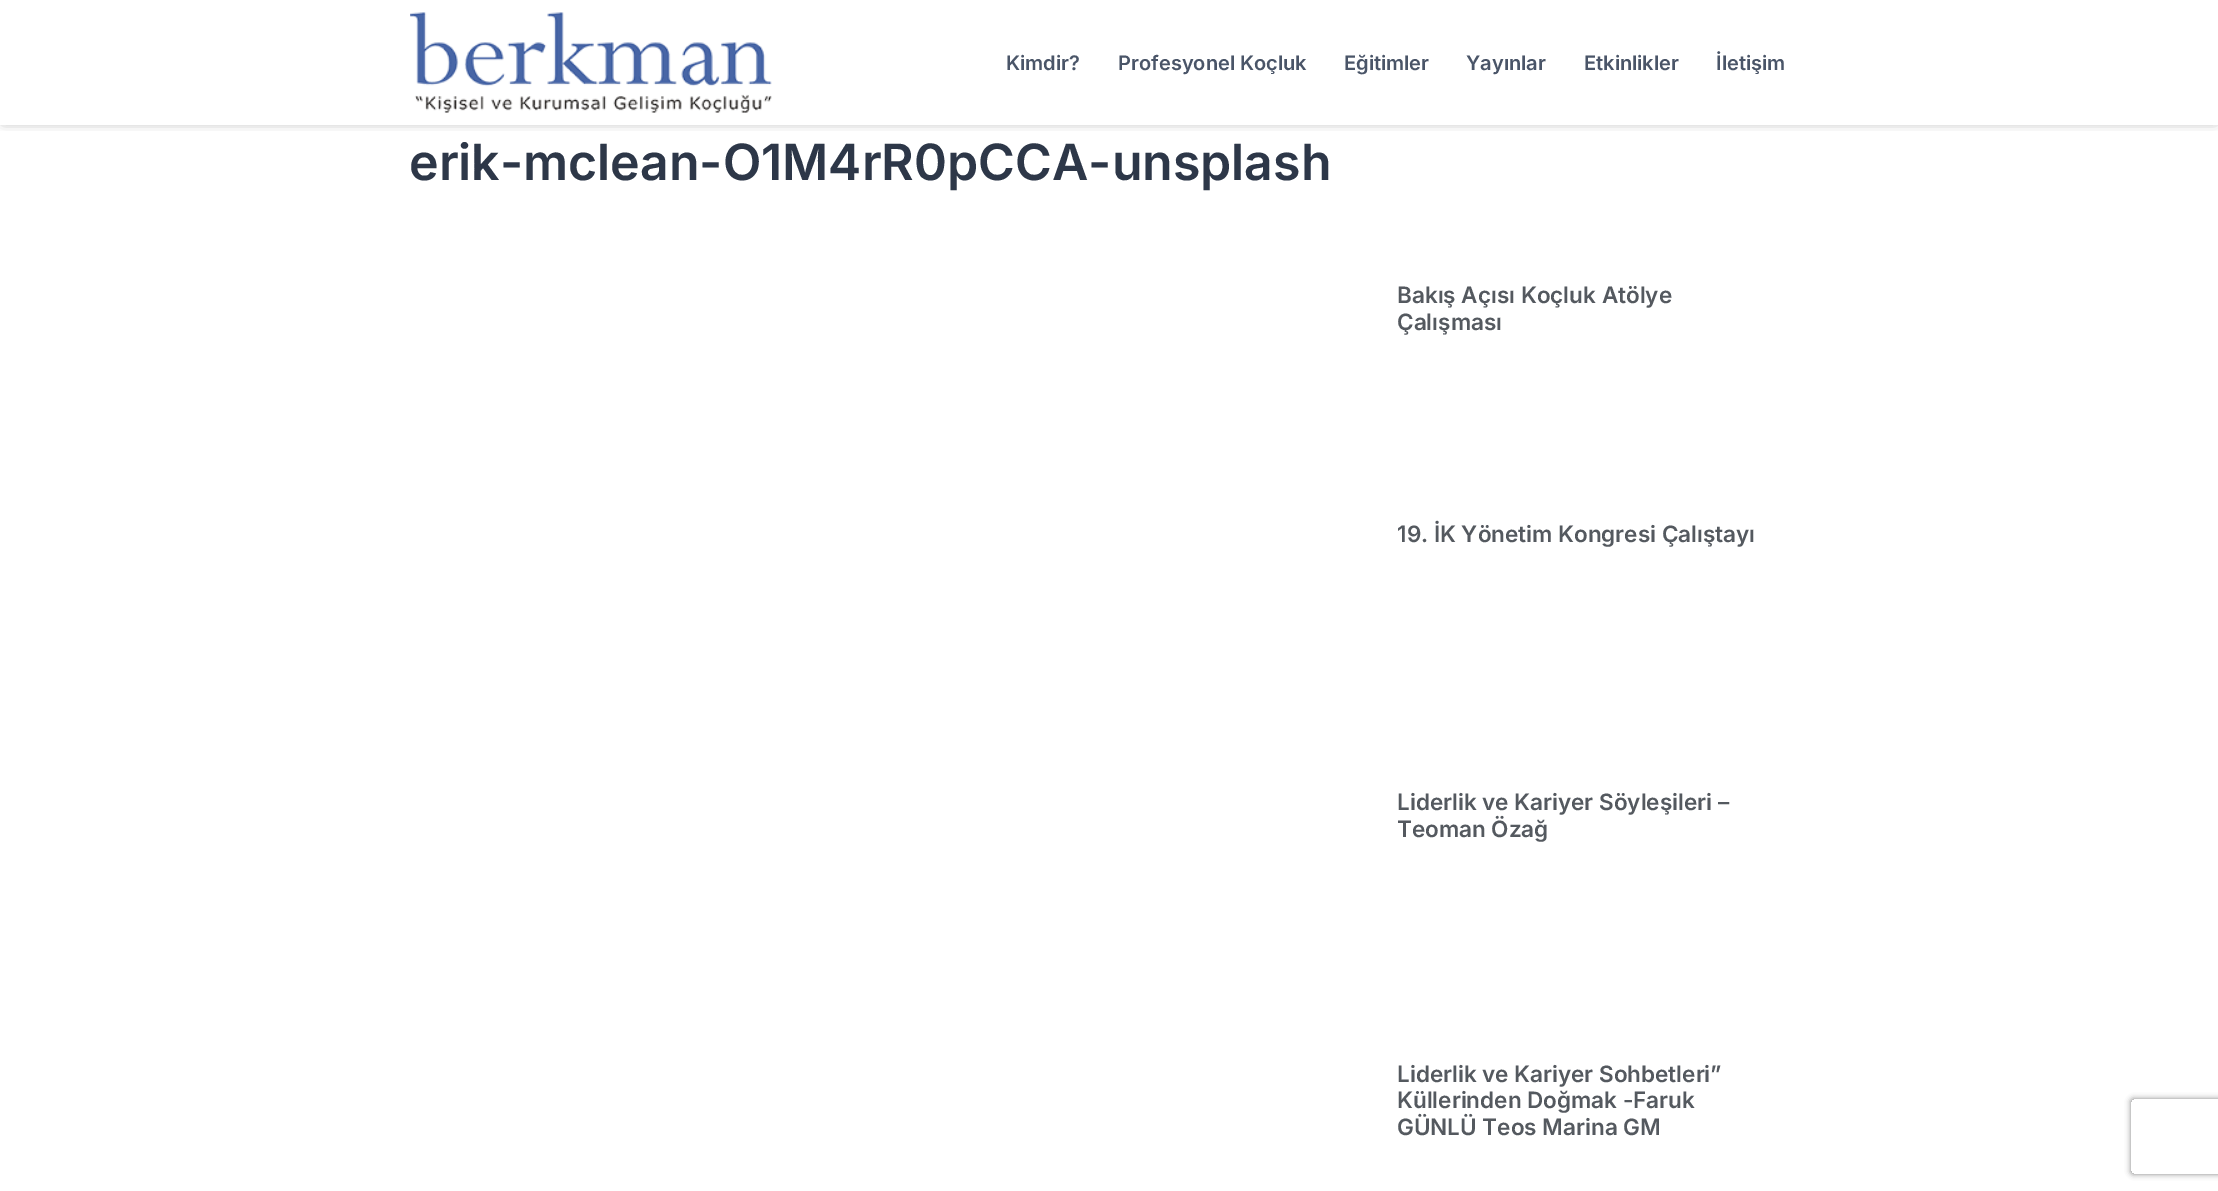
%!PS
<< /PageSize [2218 1191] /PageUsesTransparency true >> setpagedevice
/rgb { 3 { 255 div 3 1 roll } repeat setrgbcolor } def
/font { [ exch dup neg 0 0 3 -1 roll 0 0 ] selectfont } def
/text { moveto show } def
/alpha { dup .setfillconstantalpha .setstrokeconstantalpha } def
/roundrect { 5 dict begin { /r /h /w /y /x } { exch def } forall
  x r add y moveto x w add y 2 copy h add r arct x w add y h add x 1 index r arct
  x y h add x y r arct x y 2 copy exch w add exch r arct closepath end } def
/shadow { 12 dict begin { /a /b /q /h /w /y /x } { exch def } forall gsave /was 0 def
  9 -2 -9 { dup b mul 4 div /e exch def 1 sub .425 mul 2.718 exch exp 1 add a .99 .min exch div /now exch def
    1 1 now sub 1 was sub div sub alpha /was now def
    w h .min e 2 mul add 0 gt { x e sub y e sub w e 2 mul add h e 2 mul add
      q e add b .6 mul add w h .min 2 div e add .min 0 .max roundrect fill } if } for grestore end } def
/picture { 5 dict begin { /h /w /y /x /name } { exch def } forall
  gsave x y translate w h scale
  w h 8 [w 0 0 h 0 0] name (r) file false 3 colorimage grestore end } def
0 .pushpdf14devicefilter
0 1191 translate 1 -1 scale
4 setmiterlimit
255 255 255 rgb
0 0 2218 1191 rectfill
gsave
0 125 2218 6 rectclip
0 0 0 rgb
4 4 2211 117 0 5.5 0.5 shadow
grestore
(img_01.rgb) 410 12 362 101 picture
gsave
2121 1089 moveto 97 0 rlineto 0 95 rlineto -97 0 rlineto closepath 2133.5 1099 moveto 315 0 rlineto 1.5 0 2.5 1 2.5 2.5 rcurveto 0 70 rlineto 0 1.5 -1 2.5 -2.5 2.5 rcurveto -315 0 rlineto -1.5 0 -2.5 -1 -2.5 -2.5 rcurveto 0 -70 rlineto 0 -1.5 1 -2.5 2.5 -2.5 rcurveto closepath eoclip newpath
128 128 128 rgb
2131 1099 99 75 2.5 3 1 shadow
grestore
/Inter-SemiBold 20 font
74 85 104 rgb
(Kimdir?) 1006 70 text
(Profesyonel Koçluk) 1118 70 text
(Eğitimler) 1344 70 text
(Yayınlar) 1466 70 text
(Etkinlikler) 1584 70 text
(İletişim) 1716 70 text
/Inter-SemiBold 50 font
45 55 72 rgb
(erik-mclean-O1M4rR0pCCA-unsplash) 409 180 text
/Inter-SemiBold 22.5 font
84 89 95 rgb
(Bakış Açısı Koçluk Atölye) 1397 303 text
(Çalışması) 1397 330 text
(19. İK Yönetim Kongresi Çalıştayı) 1397 542 text
(Liderlik ve Kariyer Söyleşileri –) 1397 810 text
(Teoman Özağ) 1397 837 text
(Liderlik ve Kariyer Sohbetleri”) 1397 1082 text
(Küllerinden Doğmak -Faruk) 1397 1108 text
(GÜNLÜ Teos Marina GM) 1397 1135 text
.poppdf14devicefilter showpage
